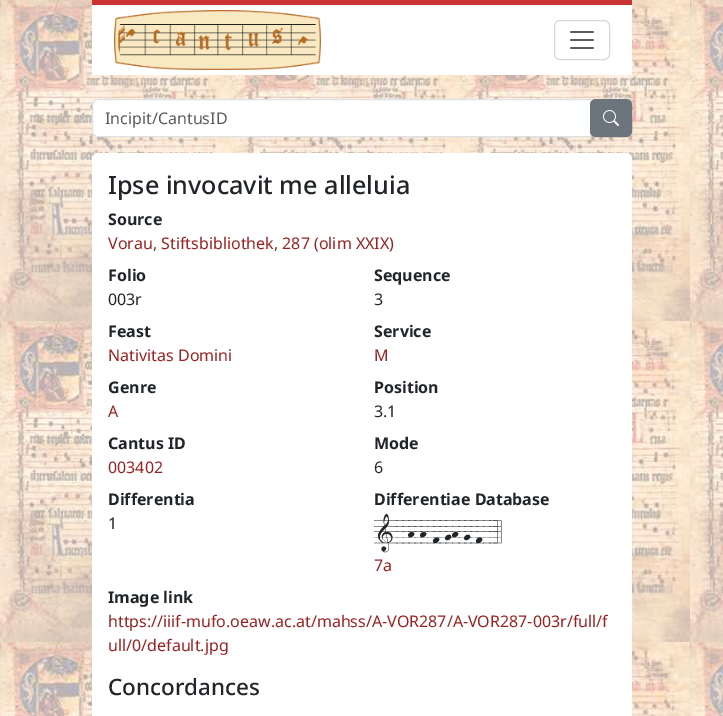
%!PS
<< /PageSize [723 716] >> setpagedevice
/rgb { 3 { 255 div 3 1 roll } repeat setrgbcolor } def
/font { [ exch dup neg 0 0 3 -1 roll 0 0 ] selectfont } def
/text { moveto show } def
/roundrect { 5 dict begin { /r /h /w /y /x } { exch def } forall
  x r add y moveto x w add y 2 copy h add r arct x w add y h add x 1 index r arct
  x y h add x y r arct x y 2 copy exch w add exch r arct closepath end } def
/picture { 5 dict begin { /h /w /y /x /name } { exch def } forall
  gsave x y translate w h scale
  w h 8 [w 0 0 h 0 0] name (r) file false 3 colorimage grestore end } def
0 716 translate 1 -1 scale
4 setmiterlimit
255 255 255 rgb
0 0 723 716 rectfill
(img_01.rgb) 0 0 723 716 picture
92 5 540 70 rectfill
204 51 51 rgb
92 0 540 5 rectfill
(img_02.rgb) 114 10 207 60 picture
217 217 217 rgb
554.5 20.5 55 39 5.5 roundrect stroke
(img_03.rgb) 570 31 24 18 picture
255 255 255 rgb
98 99.5 moveto 492.5 0 rlineto 0 37 rlineto -492.5 0 rlineto -3 0 -5.5 -2.5 -5.5 -5.5 rcurveto 0 -26 rlineto 0 -3 2.5 -5.5 5.5 -5.5 rcurveto closepath gsave fill grestore
222 226 230 rgb
stroke
108 117 125 rgb
590.5 99.5 41 37 5.5 roundrect gsave fill grestore
stroke
(img_04.rgb) 603 110 16 16 picture
255 255 255 rgb
92 153 540 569 6 roundrect fill
/NotoSans-Regular 16 font
89 92 95 rgb
(Incipit/CantusID) 105 124 text
/NotoSans-Medium 25.1 font
33 37 41 rgb
(Ipse invocavit me alleluia) 108 194 text
/NotoSans-Bold 16 font
(Source) 108 225 text
/NotoSans-Regular 16 font
153 34 34 rgb
(Vorau, Stiftsbibliothek, 287 \(olim XXIX\)) 108 249 text
/NotoSans-Bold 16 font
33 37 41 rgb
(Folio) 108 281 text
/NotoSans-Regular 16 font
(003r) 108 305 text
/NotoSans-Bold 16 font
(Sequence) 374 281 text
/NotoSans-Regular 16 font
(3) 374 305 text
/NotoSans-Bold 16 font
(Feast) 108 337 text
/NotoSans-Regular 16 font
153 34 34 rgb
(Nativitas Domini) 108 361 text
/NotoSans-Bold 16 font
33 37 41 rgb
(Service) 374 337 text
/NotoSans-Regular 16 font
153 34 34 rgb
(M) 374 361 text
/NotoSans-Bold 16 font
33 37 41 rgb
(Genre) 108 393 text
/NotoSans-Regular 16 font
153 34 34 rgb
(A) 108 417 text
/NotoSans-Bold 16 font
33 37 41 rgb
(Position) 374 393 text
/NotoSans-Regular 16 font
(3.1) 374 417 text
/NotoSans-Bold 16 font
(Cantus ID) 108 449 text
/NotoSans-Regular 16 font
153 34 34 rgb
(003402) 108 473 text
/NotoSans-Bold 16 font
33 37 41 rgb
(Mode) 374 449 text
/NotoSans-Regular 16 font
(6) 374 473 text
/NotoSans-Bold 16 font
(Differentia) 108 505 text
/NotoSans-Regular 16 font
(1) 108 529 text
/NotoSans-Bold 16 font
(Differentiae Database) 374 505 text
/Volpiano-Regular 28 font
(1--h-h-f-gh-g-f--4) 374 543 text
/NotoSans-Regular 16 font
153 34 34 rgb
(7a) 374 571 text
/NotoSans-Bold 16 font
33 37 41 rgb
(Image link) 108 603 text
/NotoSans-Regular 16 font
153 34 34 rgb
(https://iiif-mufo.oeaw.ac.at/mahss/A-VOR287/A-VOR287-003r/full/f) 108 627 text
(ull/0/default.jpg) 108 651 text
/NotoSans-Medium 22.5 font
33 37 41 rgb
(Concordances) 108 695 text
showpage
